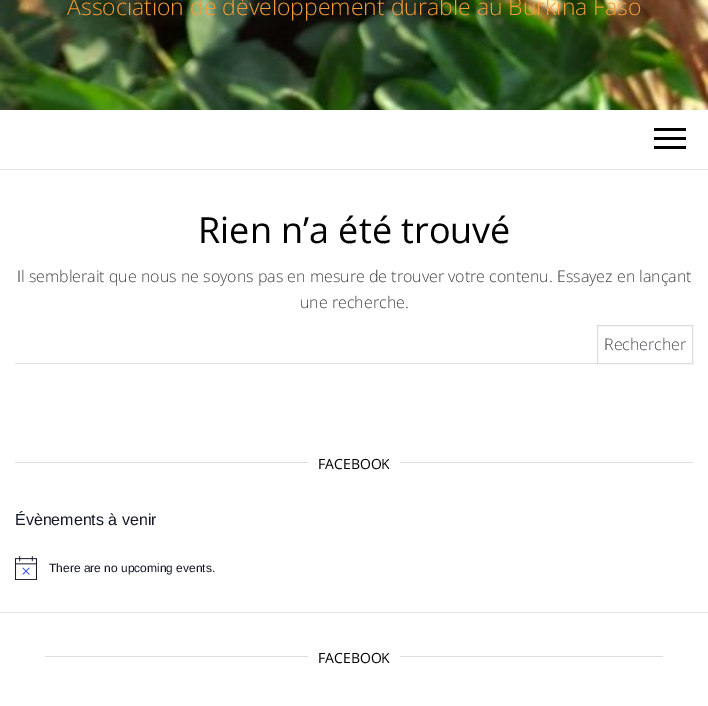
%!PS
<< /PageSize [708 706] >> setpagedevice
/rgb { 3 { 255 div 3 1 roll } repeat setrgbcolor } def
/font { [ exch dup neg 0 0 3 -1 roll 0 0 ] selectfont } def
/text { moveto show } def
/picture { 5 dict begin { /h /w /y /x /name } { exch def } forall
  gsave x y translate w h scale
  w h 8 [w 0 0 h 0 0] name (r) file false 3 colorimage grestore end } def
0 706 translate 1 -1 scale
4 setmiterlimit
255 255 255 rgb
0 0 708 706 rectfill
(img_01.rgb) 0 0 708 110 picture
227 227 227 rgb
0 169 708 1 rectfill
0 0 0 rgb
654 128 32 3 rectfill
654 137 32 3 rectfill
654 146 32 3 rectfill
221 221 221 rgb
597.5 325.5 95 38 rectstroke
15 363 582 1 rectfill
15 462 678 1 rectfill
255 255 255 rgb
308 462 92 1 rectfill
(img_02.rgb) 15 556 22 24 picture
227 227 227 rgb
0 612 708 1 rectfill
221 221 221 rgb
45 656 618 1 rectfill
255 255 255 rgb
308 656 92 1 rectfill
/OpenSans-Light 23 font
244 156 56 rgb
(Association de développement durable au Burkina Faso) 67 15 text
/OpenSans-Regular 36 font
0 0 0 rgb
(Rien n’a été trouvé) 198 243 text
/OpenSans-Light 16 font
64 64 64 rgb
(Il semblerait que nous ne soyons pas en mesure de trouver votre contenu. Essayez en lançant) 17 282 text
(une recherche.) 300 308 text
70 74 76 rgb
(Rechercher) 604 350 text
/OpenSans-Regular 14 font
0 0 0 rgb
(FACEBOOK) 318 469 text
/LiberationSans-Regular 16 font
20 24 39 rgb
(Évènements à venir) 15 525 text
/LiberationSans-Regular 12 font
(There are no upcoming events.) 49 572 text
/OpenSans-Regular 14 font
0 0 0 rgb
(FACEBOOK) 318 663 text
showpage
